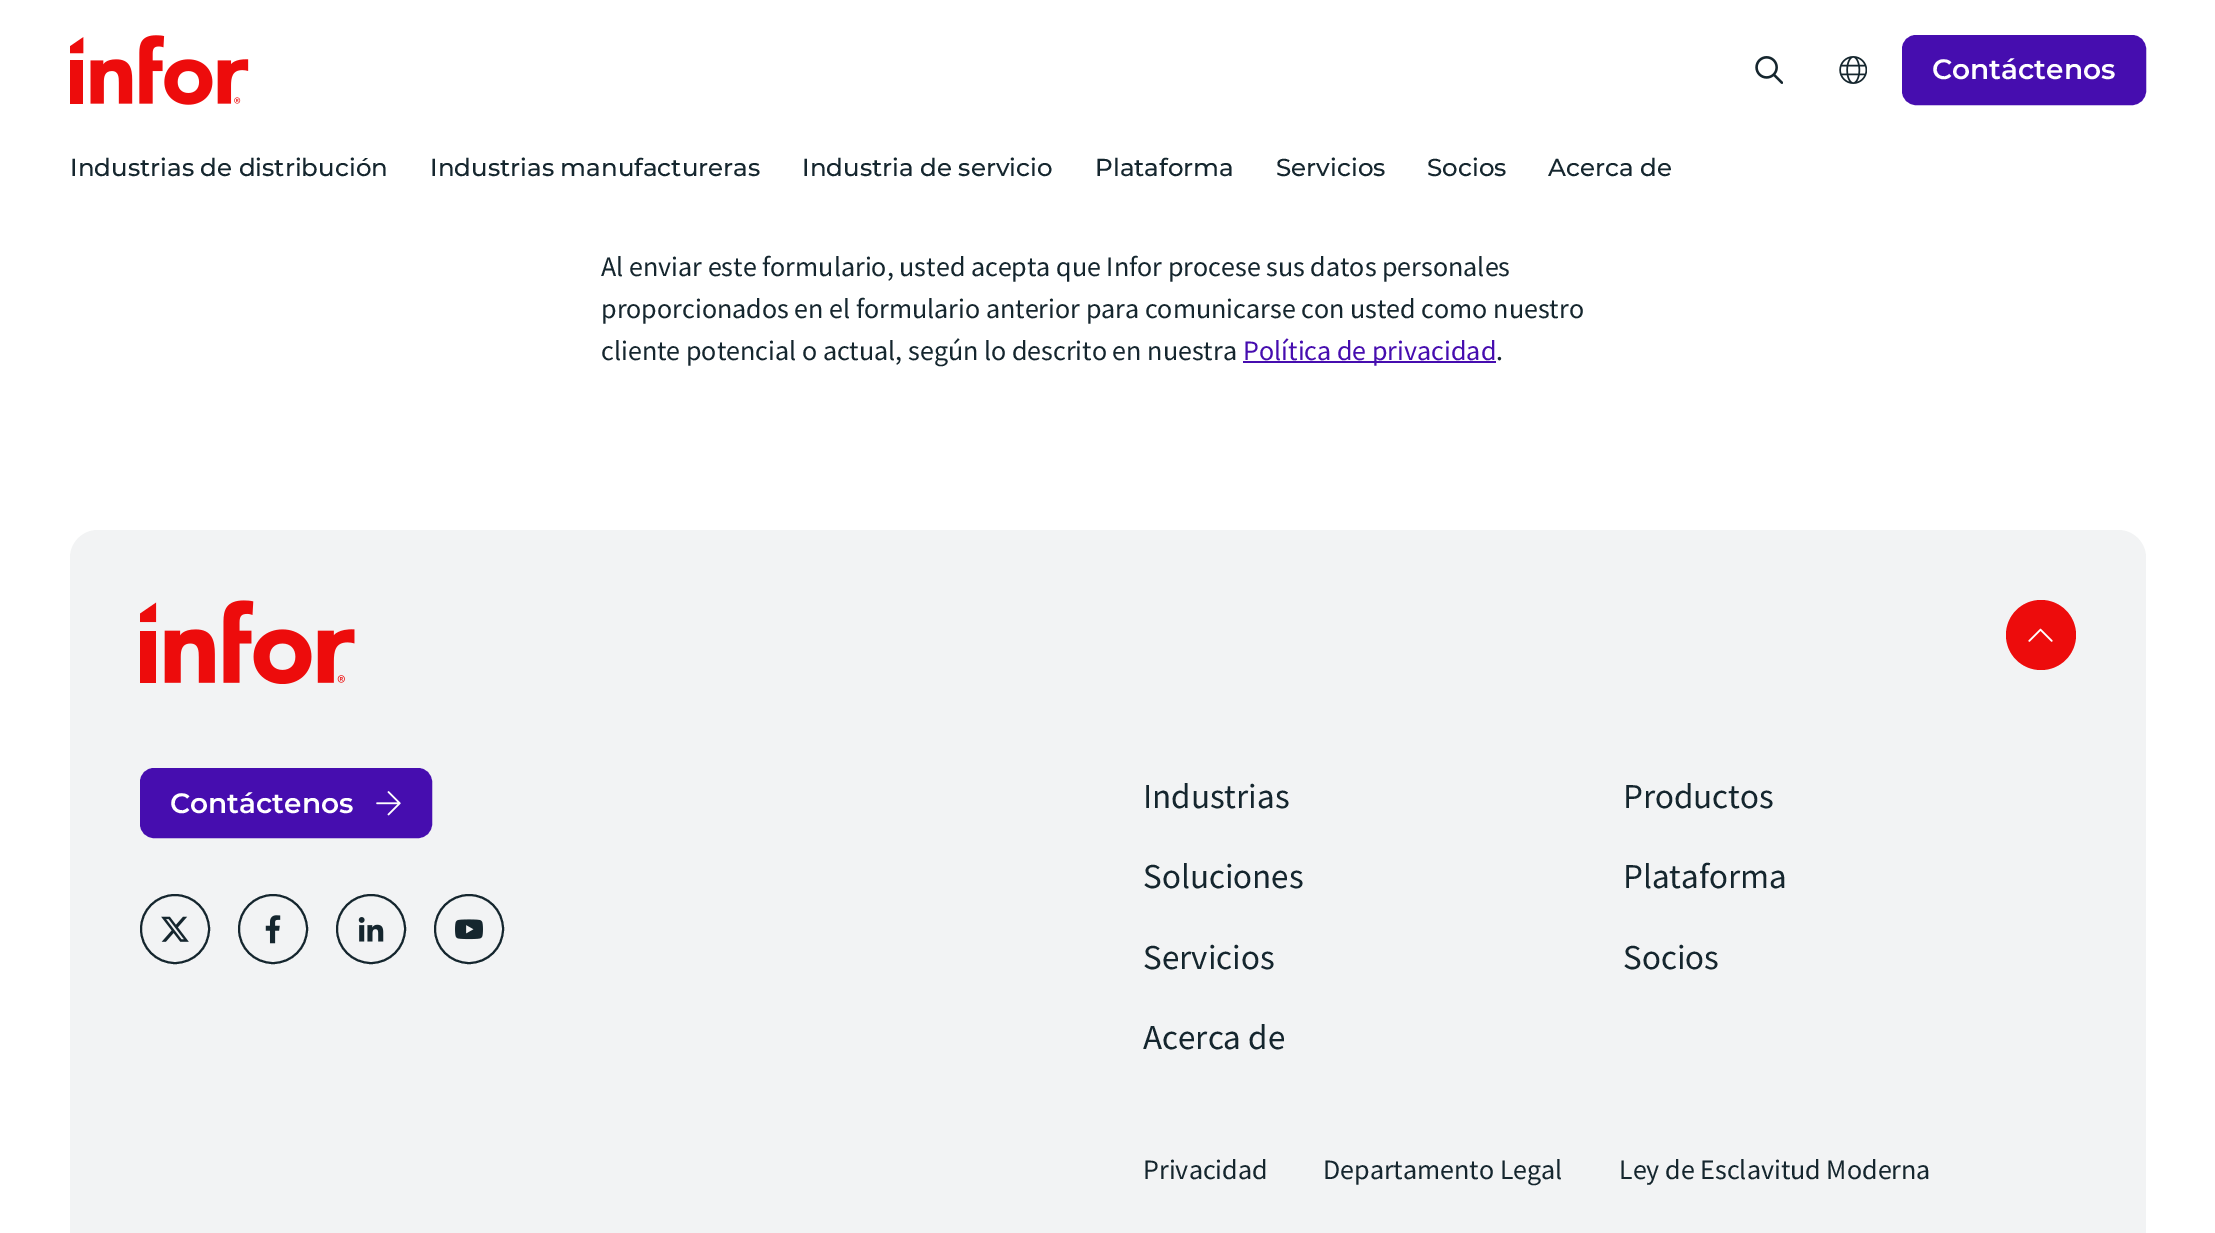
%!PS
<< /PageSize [2215 1233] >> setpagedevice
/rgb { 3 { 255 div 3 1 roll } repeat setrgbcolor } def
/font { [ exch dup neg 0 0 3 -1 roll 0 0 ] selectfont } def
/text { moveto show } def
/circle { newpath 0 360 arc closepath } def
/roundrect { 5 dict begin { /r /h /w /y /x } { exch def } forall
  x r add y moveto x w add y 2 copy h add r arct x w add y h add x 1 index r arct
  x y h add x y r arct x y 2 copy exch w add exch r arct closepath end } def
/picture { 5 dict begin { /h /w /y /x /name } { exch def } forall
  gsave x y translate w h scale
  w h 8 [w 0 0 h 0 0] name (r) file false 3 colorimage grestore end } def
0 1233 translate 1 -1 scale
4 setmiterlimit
255 255 255 rgb
0 0 2215 1233 rectfill
(img_01.rgb) 70 35 179 70 picture
(img_02.rgb) 1755 56 28 28 picture
(img_03.rgb) 1839 56 28 28 picture
70 13 175 rgb
1903 36 242 68 13 roundrect gsave fill grestore
2 setlinewidth
stroke
1243 361 253 2 rectfill
242 243 244 rgb
70 530 2076 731 28 roundrect fill
(img_04.rgb) 140 600 215 84 picture
237 12 12 rgb
2041 635 35 circle fill
(img_05.rgb) 2028 628 25 14 picture
70 13 175 rgb
141 769 290 68 13 roundrect gsave fill grestore
stroke
(img_06.rgb) 376 791 25 25 picture
21 38 46 rgb
175 929 34 circle stroke
(img_07.rgb) 161 916 28 26 picture
273 929 34 circle stroke
(img_08.rgb) 265 915 16 29 picture
371 929 34 circle stroke
(img_09.rgb) 358 917 26 25 picture
469 929 34 circle stroke
(img_10.rgb) 455 919 28 21 picture
/Montserrat-SemiBold 28 font
255 255 255 rgb
(Contáctenos) 1932 79 text
/Montserrat-Medium 24.5 font
21 38 46 rgb
(Industrias de distribución) 70 176 text
(Industrias manufactureras) 430 176 text
(Industria de servicio) 802 176 text
(Plataforma) 1095 176 text
(Servicios) 1276 176 text
(Socios) 1427 176 text
(Acerca de) 1548 176 text
/SourceSansPro-Regular 28 font
(Al enviar este formulario, usted acepta que Infor procese sus datos personales) 601 276 text
(proporcionados en el formulario anterior para comunicarse con usted como nuestro) 601 318 text
(cliente potencial o actual, según lo descrito en nuestra) 601 360 text
70 13 175 rgb
(Política de privacidad) 1243 360 text
21 38 46 rgb
(.) 1496 360 text
/Montserrat-SemiBold 28 font
255 255 255 rgb
(Contáctenos) 170 813 text
/SourceSansPro-Regular 35 font
21 38 46 rgb
(Industrias) 1143 808 text
(Productos) 1623 808 text
(Soluciones) 1143 888 text
(Plataforma) 1623 888 text
(Servicios) 1143 969 text
(Socios) 1623 969 text
(Acerca de) 1143 1049 text
/SourceSansPro-Regular 28 font
(Privacidad) 1143 1179 text
(Departamento Legal) 1323 1179 text
(Ley de Esclavitud Moderna) 1619 1179 text
showpage
